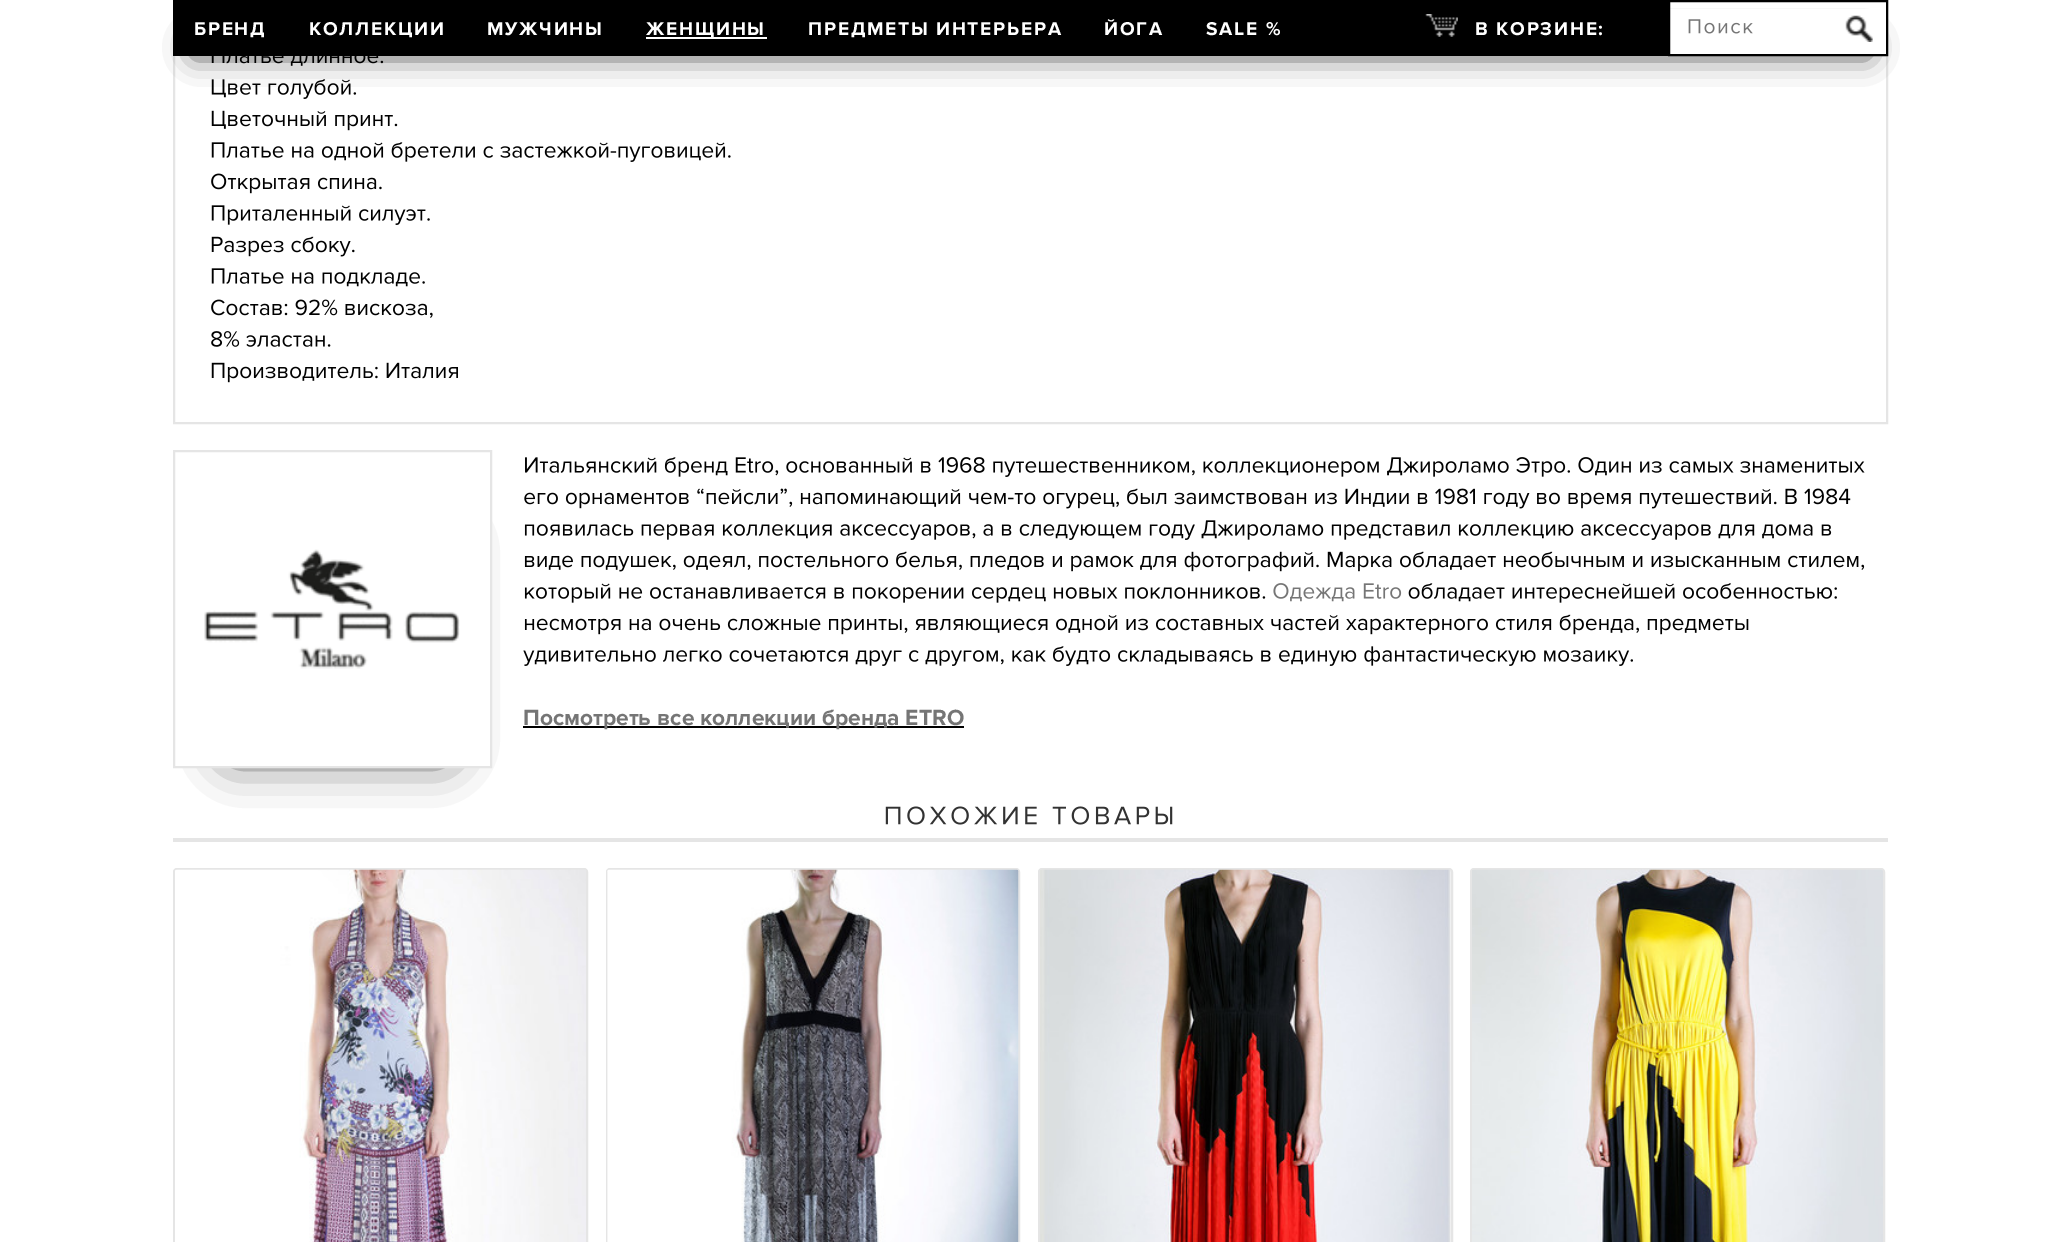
%!PS
<< /PageSize [2061 1242] /PageUsesTransparency true >> setpagedevice
/rgb { 3 { 255 div 3 1 roll } repeat setrgbcolor } def
/font { [ exch dup neg 0 0 3 -1 roll 0 0 ] selectfont } def
/text { moveto show } def
/alpha { dup .setfillconstantalpha .setstrokeconstantalpha } def
/roundrect { 5 dict begin { /r /h /w /y /x } { exch def } forall
  x r add y moveto x w add y 2 copy h add r arct x w add y h add x 1 index r arct
  x y h add x y r arct x y 2 copy exch w add exch r arct closepath end } def
/shadow { 12 dict begin { /a /b /q /h /w /y /x } { exch def } forall gsave /was 0 def
  9 -2 -9 { dup b mul 4 div /e exch def 1 sub .425 mul 2.718 exch exp 1 add a .99 .min exch div /now exch def
    1 1 now sub 1 was sub div sub alpha /was now def
    w h .min e 2 mul add 0 gt { x e sub y e sub w e 2 mul add h e 2 mul add
      q e add b .6 mul add w h .min 2 div e add .min 0 .max roundrect fill } if } for grestore end } def
/picture { 5 dict begin { /h /w /y /x /name } { exch def } forall
  gsave x y translate w h scale
  w h 8 [w 0 0 h 0 0] name (r) file false 3 colorimage grestore end } def
0 .pushpdf14devicefilter
0 1242 translate 1 -1 scale
4 setmiterlimit
255 255 255 rgb
0 0 2061 1242 rectfill
229 229 229 rgb
2 setlinewidth
174 -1 1713 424 rectstroke
(img_04.rgb) 211 56 173 10 picture
(img_05.rgb) 211 79 146 20 picture
0 0 0 rgb
198 44 1666 7 0 16 1 shadow
173 0 1495 56 rectfill
255 255 255 rgb
646 37 121 2 rectfill
(img_01.rgb) 1425 14 33 23 picture
1670 9 216 45 rectfill
0 0 0 rgb
1669 1 218 54 rectstroke
(img_02.rgb) 1688 19 65 15 picture
(img_03.rgb) 1845 15 28 27 picture
(img_06.rgb) 211 110 187 21 picture
(img_07.rgb) 211 142 520 20 picture
(img_08.rgb) 211 173 171 21 picture
(img_09.rgb) 211 205 219 20 picture
(img_10.rgb) 211 236 144 21 picture
(img_11.rgb) 211 268 214 19 picture
(img_12.rgb) 211 299 222 19 picture
(img_13.rgb) 211 331 120 16 picture
(img_14.rgb) 211 362 247 21 picture
231 539 214 214 0 24.5 1 shadow
255 255 255 rgb
175 482 315 284 rectfill
229 229 229 rgb
174 451 317 316 rectstroke
(img_15.rgb) 204 549 256 120 picture
(img_16.rgb) 525 457 1340 20 picture
(img_17.rgb) 524 488 1327 21 picture
(img_18.rgb) 524 520 1308 20 picture
(img_19.rgb) 524 551 1341 21 picture
(img_20.rgb) 524 583 742 20 picture
(img_21.rgb) 1273 583 129 19 picture
(img_22.rgb) 1408 583 429 20 picture
(img_23.rgb) 524 614 1225 21 picture
(img_24.rgb) 523 646 1110 20 picture
0 0 0 rgb
523 726 441 2 rectfill
229 229 229 rgb
173 838 1715 4 rectfill
(img_25.rgb) 885 806 288 19 picture
174 869 413 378 3 roundrect stroke
(img_26.rgb) 175 869 411 373 picture
607 869 412 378 3 roundrect stroke
(img_27.rgb) 607 869 412 373 picture
1039 869 413 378 3 roundrect stroke
(img_28.rgb) 1040 869 411 373 picture
1471 869 413 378 3 roundrect stroke
(img_29.rgb) 1472 869 411 373 picture
/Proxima-Bold 19.25 font
255 255 255 rgb
194 35 moveto 1.75 0 (БРЕНД) ashow
309 35 moveto 1.75 0 (КОЛЛЕКЦИИ) ashow
487 35 moveto 1.75 0 (МУЖЧИНЫ) ashow
646 35 moveto 1.75 0 (ЖЕНЩИНЫ) ashow
808 35 moveto 1.75 0 (ПРЕДМЕТЫ ИНТЕРЬЕРА) ashow
1104 35 moveto 1.75 0 (ЙОГА) ashow
1206 35 moveto 1.75 0 (SALE %) ashow
1475 35 moveto 1.75 0 (В КОРЗИНЕ:) ashow
/Proxima-Bold 22.75 font
117 117 117 rgb
(Посмотреть все коллекции бренда ETRO) 523 725 text
.poppdf14devicefilter showpage
